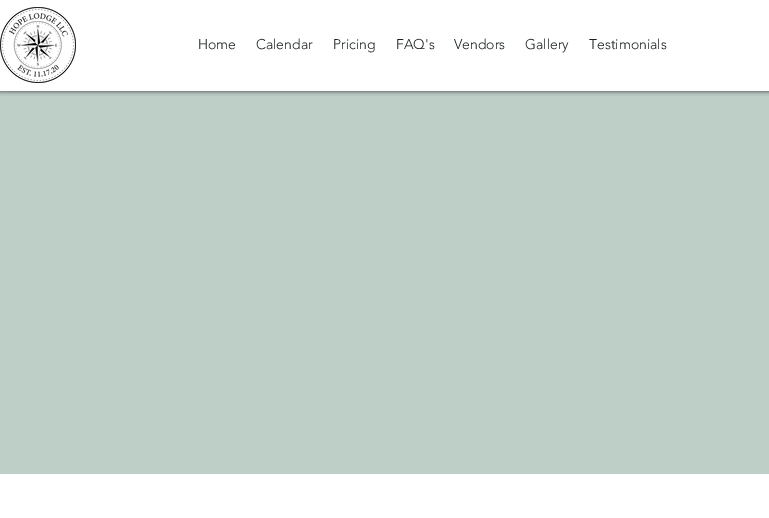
%!PS
<< /PageSize [769 518] /PageUsesTransparency true >> setpagedevice
/rgb { 3 { 255 div 3 1 roll } repeat setrgbcolor } def
/font { [ exch dup neg 0 0 3 -1 roll 0 0 ] selectfont } def
/text { moveto show } def
/alpha { dup .setfillconstantalpha .setstrokeconstantalpha } def
/roundrect { 5 dict begin { /r /h /w /y /x } { exch def } forall
  x r add y moveto x w add y 2 copy h add r arct x w add y h add x 1 index r arct
  x y h add x y r arct x y 2 copy exch w add exch r arct closepath end } def
/shadow { 12 dict begin { /a /b /q /h /w /y /x } { exch def } forall gsave /was 0 def
  9 -2 -9 { dup b mul 4 div /e exch def 1 sub .425 mul 2.718 exch exp 1 add a .99 .min exch div /now exch def
    1 1 now sub 1 was sub div sub alpha /was now def
    w h .min e 2 mul add 0 gt { x e sub y e sub w e 2 mul add h e 2 mul add
      q e add b .6 mul add w h .min 2 div e add .min 0 .max roundrect fill } if } for grestore end } def
/picture { 5 dict begin { /h /w /y /x /name } { exch def } forall
  gsave x y translate w h scale
  w h 8 [w 0 0 h 0 0] name (r) file false 3 colorimage grestore end } def
0 .pushpdf14devicefilter
0 518 translate 1 -1 scale
4 setmiterlimit
255 255 255 rgb
0 0 769 518 rectfill
190 207 200 rgb
0 91 769 383 rectfill
gsave
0 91 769 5 rectclip
0 0 0 rgb
0 0 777 91 0 2.5 0.7 shadow
grestore
(img_01.rgb) 0 7 76 76 picture
/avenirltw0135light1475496-Light 14 font
25 34 30 rgb
(Home) 198 49 text
(Calendar) 256 49 text
(Pricing) 333 49 text
(FAQ's) 396 49 text
(Vendors) 454 49 text
(Gallery) 525 49 text
(Testimonials) 589 49 text
.poppdf14devicefilter showpage
